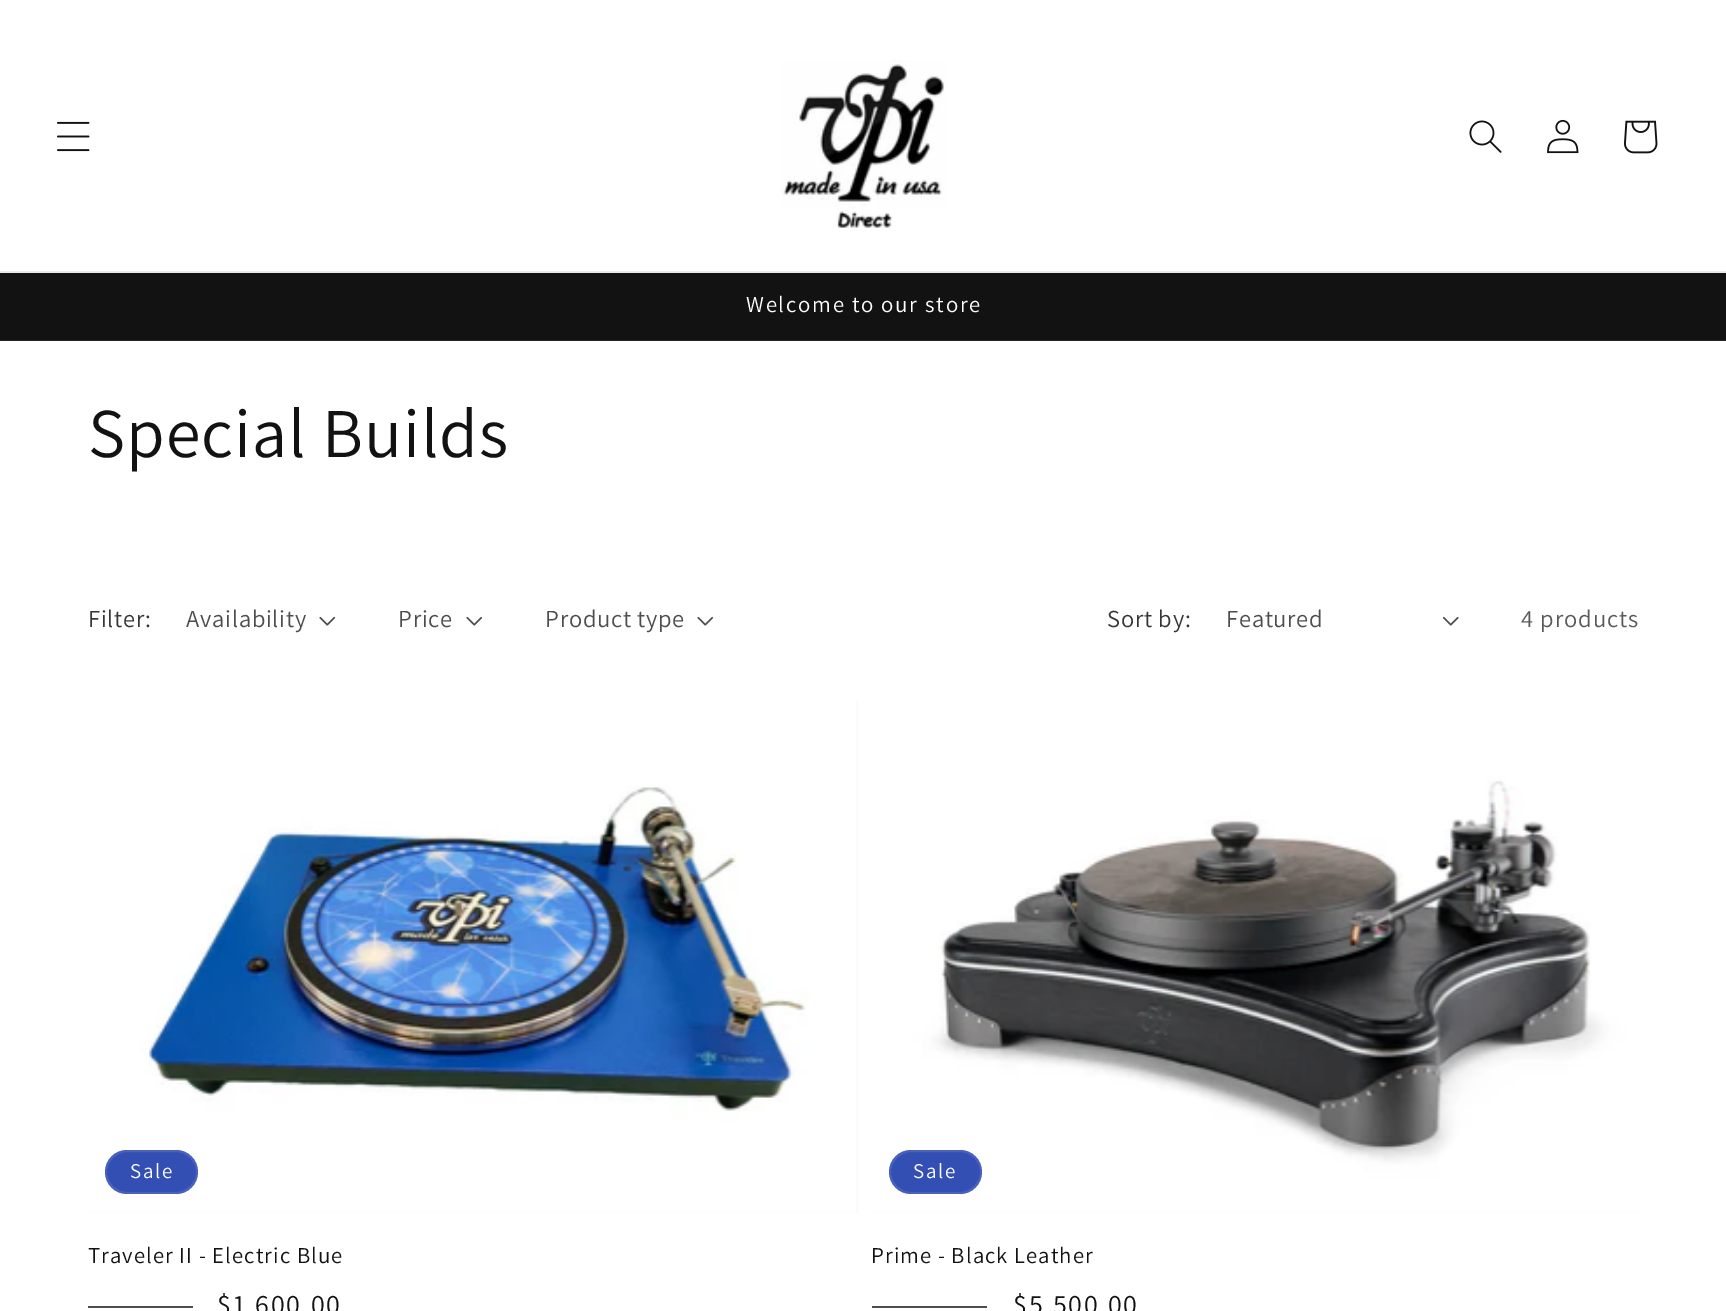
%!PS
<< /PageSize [1726 1311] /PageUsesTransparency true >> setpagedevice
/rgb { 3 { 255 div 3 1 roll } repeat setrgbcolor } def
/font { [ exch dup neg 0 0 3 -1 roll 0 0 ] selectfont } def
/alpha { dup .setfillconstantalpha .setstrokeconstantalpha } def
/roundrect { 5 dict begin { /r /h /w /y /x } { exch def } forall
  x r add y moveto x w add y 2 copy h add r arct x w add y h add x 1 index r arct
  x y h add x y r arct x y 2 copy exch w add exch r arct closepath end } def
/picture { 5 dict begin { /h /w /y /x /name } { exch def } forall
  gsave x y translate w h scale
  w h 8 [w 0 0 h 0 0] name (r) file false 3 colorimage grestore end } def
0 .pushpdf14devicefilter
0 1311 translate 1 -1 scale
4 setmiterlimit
255 255 255 rgb
0 0 1726 1311 rectfill
236 236 236 rgb
0 271 1726 2 rectfill
(img_01.rgb) 57 121 33 31 picture
(img_02.rgb) 781 60 165 168 picture
(img_03.rgb) 1469 120 33 33 picture
(img_04.rgb) 1547 119 32 35 picture
(img_05.rgb) 1624 120 34 34 picture
18 18 18 rgb
0 273 1726 67 rectfill
37 37 37 rgb
0 340 1726 1 rectfill
(img_06.rgb) 319 616 17 10 picture
(img_06.rgb) 466 616 17 10 picture
(img_06.rgb) 697 616 17 10 picture
(img_07.rgb) 1442 616 17 10 picture
243 243 243 rgb
88 700 770 513 rectfill
(img_08.rgb) 88 700 770 513 picture
51 79 180 rgb
105 1150 93 44 22 roundrect fill
0.1 alpha
255 255 255 rgb
2 setlinewidth
106 1151 91 42 21 roundrect stroke
0.75 alpha
18 18 18 rgb
88 1306 105 2 rectfill
1 alpha
(img_09.rgb) 872 700 768 513 picture
51 79 180 rgb
889 1150 93 44 22 roundrect fill
0.1 alpha
255 255 255 rgb
890 1151 91 42 21 roundrect stroke
0.75 alpha
18 18 18 rgb
872 1306 115 2 rectfill
/Assistant-Regular 22.75 font
1 alpha
255 255 255 rgb
746 312 moveto 1.75 0 (Welcome to our store) ashow
/Assistant-Regular 70 font
18 18 18 rgb
88 457 moveto 1.05 0 (Special Builds) ashow
/Assistant-Regular 24.5 font
54 54 54 rgb
88 627 moveto 0.75 0 (Filter:) ashow
77 77 77 rgb
186 627 moveto 0.75 0 (Availability) ashow
398 627 moveto 0.75 0 (Price) ashow
545 627 moveto 0.75 0 (Product type) ashow
54 54 54 rgb
1107 627 moveto 0.75 0 (Sort by:) ashow
77 77 77 rgb
1226 627 moveto 0.75 0 (Featured) ashow
89 89 89 rgb
1521 627 moveto 1.05 0 (4 products) ashow
/Assistant-Regular 21 font
255 255 255 rgb
130 1178 moveto 1.75 0 (Sale) ashow
/Assistant-Regular 22.75 font
18 18 18 rgb
88 1263 moveto 1.05 0 (Traveler II - Electric Blue) ashow
/Assistant-Regular 28 font
217 1314 moveto 1.75 0 ($1,600.00) ashow
/Assistant-Regular 21 font
255 255 255 rgb
913 1178 moveto 1.75 0 (Sale) ashow
/Assistant-Regular 22.75 font
18 18 18 rgb
871 1263 moveto 1.05 0 (Prime - Black Leather) ashow
/Assistant-Regular 28 font
1013 1314 moveto 1.75 0 ($5,500.00) ashow
.poppdf14devicefilter showpage
